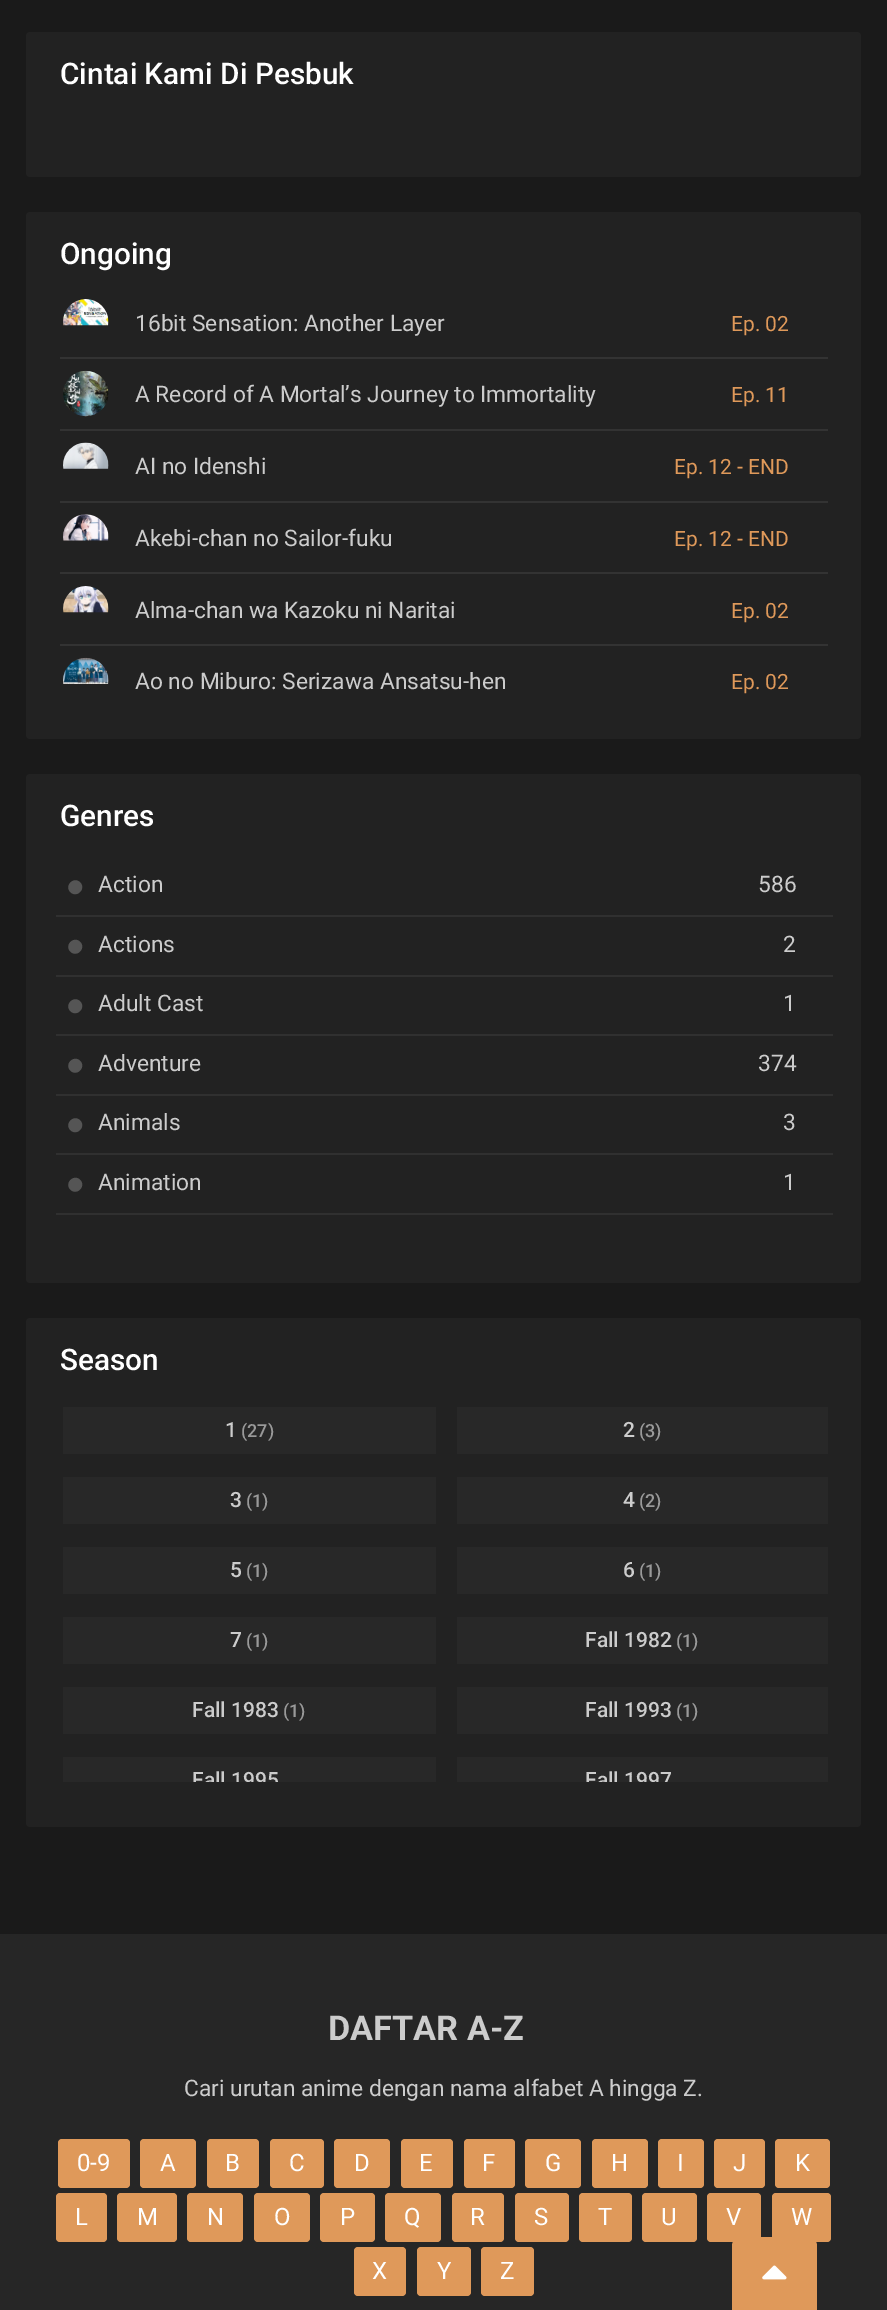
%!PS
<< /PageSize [887 2310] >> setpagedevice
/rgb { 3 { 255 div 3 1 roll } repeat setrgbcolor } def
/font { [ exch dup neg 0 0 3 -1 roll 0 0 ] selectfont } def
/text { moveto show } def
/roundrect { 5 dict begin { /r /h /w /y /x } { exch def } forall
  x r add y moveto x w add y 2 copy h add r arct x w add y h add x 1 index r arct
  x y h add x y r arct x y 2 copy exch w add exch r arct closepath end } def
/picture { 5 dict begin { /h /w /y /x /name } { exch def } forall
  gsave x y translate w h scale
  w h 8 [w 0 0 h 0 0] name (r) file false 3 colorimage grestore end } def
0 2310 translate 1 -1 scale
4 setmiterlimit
26 26 26 rgb
0 0 887 2310 rectfill
34 34 34 rgb
26 32 835 145 4 roundrect fill
26 212 835 527 4 roundrect fill
51 51 51 rgb
60 357 768 2 rectfill
(img_01.rgb) 63 299 46 27 picture
60 429 768 2 rectfill
(img_02.rgb) 63 370 46 47 picture
60 501 768 2 rectfill
(img_03.rgb) 63 442 46 27 picture
60 572 768 2 rectfill
(img_04.rgb) 63 514 46 27 picture
60 644 768 2 rectfill
(img_05.rgb) 63 586 46 27 picture
(img_06.rgb) 63 657 46 27 picture
34 34 34 rgb
26 774 835 509 4 roundrect fill
48 48 48 rgb
56 915 777 2 rectfill
85 85 85 rgb
70.5 882.5 moveto 6.5 -6.5 16 3 9.5 9.5 rcurveto -6.5 6.5 -16 -3 -9.5 -9.5 rcurveto closepath fill
48 48 48 rgb
56 975 777 2 rectfill
85 85 85 rgb
70.5 942 moveto 6.5 -6.5 16 3 9.5 9.5 rcurveto -6.5 6.5 -16 -3 -9.5 -9.5 rcurveto closepath fill
48 48 48 rgb
56 1034 777 2 rectfill
85 85 85 rgb
70.5 1001.5 moveto 6.5 -6.5 16 3 9.5 9.5 rcurveto -6.5 6.5 -16 -3 -9.5 -9.5 rcurveto closepath fill
48 48 48 rgb
56 1094 777 2 rectfill
85 85 85 rgb
70.5 1061 moveto 6.5 -6.5 16 3 9.5 9.5 rcurveto -6.5 6.5 -16 -3 -9.5 -9.5 rcurveto closepath fill
48 48 48 rgb
56 1153 777 2 rectfill
85 85 85 rgb
70.5 1120.5 moveto 6.5 -6.5 16 3 9.5 9.5 rcurveto -6.5 6.5 -16 -3 -9.5 -9.5 rcurveto closepath fill
48 48 48 rgb
56 1213 777 2 rectfill
85 85 85 rgb
70.5 1180 moveto 6.5 -6.5 16 3 9.5 9.5 rcurveto -6.5 6.5 -16 -3 -9.5 -9.5 rcurveto closepath fill
34 34 34 rgb
26 1318 835 509 4 roundrect fill
40 40 40 rgb
63 1407 373 47 rectfill
457 1407 371 47 rectfill
63 1477 373 47 rectfill
457 1477 371 47 rectfill
63 1547 373 47 rectfill
457 1547 371 47 rectfill
63 1617 373 47 rectfill
457 1617 371 47 rectfill
63 1687 373 47 rectfill
457 1687 371 47 rectfill
63 1757 373 25 rectfill
457 1757 371 25 rectfill
38 38 38 rgb
0 1934 887 376 rectfill
223 153 90 rgb
58 2139 72 49 4 roundrect fill
140 2139 56 49 4 roundrect fill
207 2139 52 49 4 roundrect fill
270 2139 54 49 4 roundrect fill
334 2139 56 49 4 roundrect fill
401 2139 52 49 4 roundrect fill
464 2139 51 49 4 roundrect fill
525 2139 56 49 4 roundrect fill
592 2139 56 49 4 roundrect fill
658 2139 46 49 4 roundrect fill
714 2139 51 49 4 roundrect fill
775 2139 55 49 4 roundrect fill
56 2193 51 49 4 roundrect fill
117 2193 60 49 4 roundrect fill
187 2193 56 49 4 roundrect fill
254 2193 56 49 4 roundrect fill
320 2193 55 49 4 roundrect fill
385 2193 56 49 4 roundrect fill
452 2193 52 49 4 roundrect fill
515 2193 54 49 4 roundrect fill
579 2193 53 49 4 roundrect fill
642 2193 55 49 4 roundrect fill
707 2193 54 49 4 roundrect fill
772 2193 59 49 4 roundrect fill
354 2247 52 49 4 roundrect fill
417 2247 54 49 4 roundrect fill
481 2247 53 49 4 roundrect fill
741 2237 moveto 67 0 rlineto 5 0 9 4 9 9 rcurveto 0 64 rlineto -85 0 rlineto 0 -64 rlineto 0 -5 4 -9 9 -9 rcurveto closepath fill
(img_07.rgb) 762 2265 25 15 picture
/Roboto-Medium 29.75 font
255 255 255 rgb
(Cintai Kami Di Pesbuk) 60 84 text
(Ongoing) 60 264 text
/Roboto-Regular 22.75 font
204 204 204 rgb
(16bit Sensation: Another Layer) 135 331 text
/Roboto-Regular 21 font
223 153 90 rgb
(Ep. 02) 731 331 text
/Roboto-Regular 22.75 font
204 204 204 rgb
(A Record of A Mortal’s Journey to Immortality) 135 402 text
/Roboto-Regular 21 font
223 153 90 rgb
(Ep. 11) 731 402 text
/Roboto-Regular 22.75 font
204 204 204 rgb
(AI no Idenshi) 135 474 text
/Roboto-Regular 21 font
223 153 90 rgb
(Ep. 12 - END) 674 474 text
/Roboto-Regular 22.75 font
204 204 204 rgb
(Akebi-chan no Sailor-fuku) 135 546 text
/Roboto-Regular 21 font
223 153 90 rgb
(Ep. 12 - END) 674 546 text
/Roboto-Regular 22.75 font
204 204 204 rgb
(Alma-chan wa Kazoku ni Naritai) 135 618 text
/Roboto-Regular 21 font
223 153 90 rgb
(Ep. 02) 731 618 text
/Roboto-Regular 22.75 font
204 204 204 rgb
(Ao no Miburo: Serizawa Ansatsu-hen) 135 689 text
/Roboto-Regular 21 font
223 153 90 rgb
(Ep. 02) 731 689 text
/Roboto-Medium 29.75 font
255 255 255 rgb
(Genres) 60 826 text
/Roboto-Regular 22.75 font
204 204 204 rgb
(Action) 98 892 text
(586) 758 892 text
(Actions) 98 952 text
(2) 783 952 text
(Adult Cast) 98 1011 text
(1) 783 1011 text
(Adventure) 98 1071 text
(374) 758 1071 text
(Animals) 98 1130 text
(3) 783 1130 text
(Animation) 98 1190 text
(1) 783 1190 text
/Roboto-Medium 29.75 font
255 255 255 rgb
(Season) 60 1370 text
/Roboto-Medium 21 font
204 204 204 rgb
(1) 225 1437 text
/Roboto-Medium 18 font
153 153 153 rgb
(\(27\)) 241 1437 text
/Roboto-Medium 21 font
204 204 204 rgb
(2) 623 1437 text
/Roboto-Medium 18 font
153 153 153 rgb
(\(3\)) 639 1437 text
/Roboto-Medium 21 font
204 204 204 rgb
(3) 230 1507 text
/Roboto-Medium 18 font
153 153 153 rgb
(\(1\)) 246 1507 text
/Roboto-Medium 21 font
204 204 204 rgb
(4) 623 1507 text
/Roboto-Medium 18 font
153 153 153 rgb
(\(2\)) 639 1507 text
/Roboto-Medium 21 font
204 204 204 rgb
(5) 230 1577 text
/Roboto-Medium 18 font
153 153 153 rgb
(\(1\)) 246 1577 text
/Roboto-Medium 21 font
204 204 204 rgb
(6) 623 1577 text
/Roboto-Medium 18 font
153 153 153 rgb
(\(1\)) 639 1577 text
/Roboto-Medium 21 font
204 204 204 rgb
(7) 230 1647 text
/Roboto-Medium 18 font
153 153 153 rgb
(\(1\)) 246 1647 text
/Roboto-Medium 21 font
204 204 204 rgb
(Fall 1982) 585 1647 text
/Roboto-Medium 18 font
153 153 153 rgb
(\(1\)) 676 1647 text
/Roboto-Medium 21 font
204 204 204 rgb
(Fall 1983) 192 1717 text
/Roboto-Medium 18 font
153 153 153 rgb
(\(1\)) 283 1717 text
/Roboto-Medium 21 font
204 204 204 rgb
(Fall 1993) 585 1717 text
/Roboto-Medium 18 font
153 153 153 rgb
(\(1\)) 676 1717 text
gsave
51 1752 394 30 rectclip
/Roboto-Medium 21 font
204 204 204 rgb
(Fall 1995) 192 1787 text
grestore
gsave
445 1752 392 30 rectclip
/Roboto-Medium 21 font
204 204 204 rgb
(Fall 1997) 585 1787 text
grestore
/Roboto-Bold 34.25 font
204 204 204 rgb
(DAFTAR A-Z) 328 2040 text
/Roboto-Regular 22.75 font
(Cari urutan anime dengan nama alfabet A hingga Z.) 184 2096 text
/Roboto-Regular 24 font
255 255 255 rgb
(0-9) 77 2171 text
(A) 160 2171 text
(B) 225 2171 text
(C) 289 2171 text
(D) 354 2171 text
(E) 419 2171 text
(F) 482 2171 text
(G) 545 2171 text
(H) 611 2171 text
(I) 677 2171 text
(J) 733 2171 text
(K) 795 2171 text
(L) 75 2225 text
(M) 137 2225 text
(N) 207 2225 text
(O) 274 2225 text
(P) 340 2225 text
(Q) 404 2225 text
(R) 470 2225 text
(S) 534 2225 text
(T) 598 2225 text
(U) 661 2225 text
(V) 726 2225 text
(W) 791 2225 text
(X) 372 2279 text
(Y) 437 2279 text
(Z) 500 2279 text
showpage
